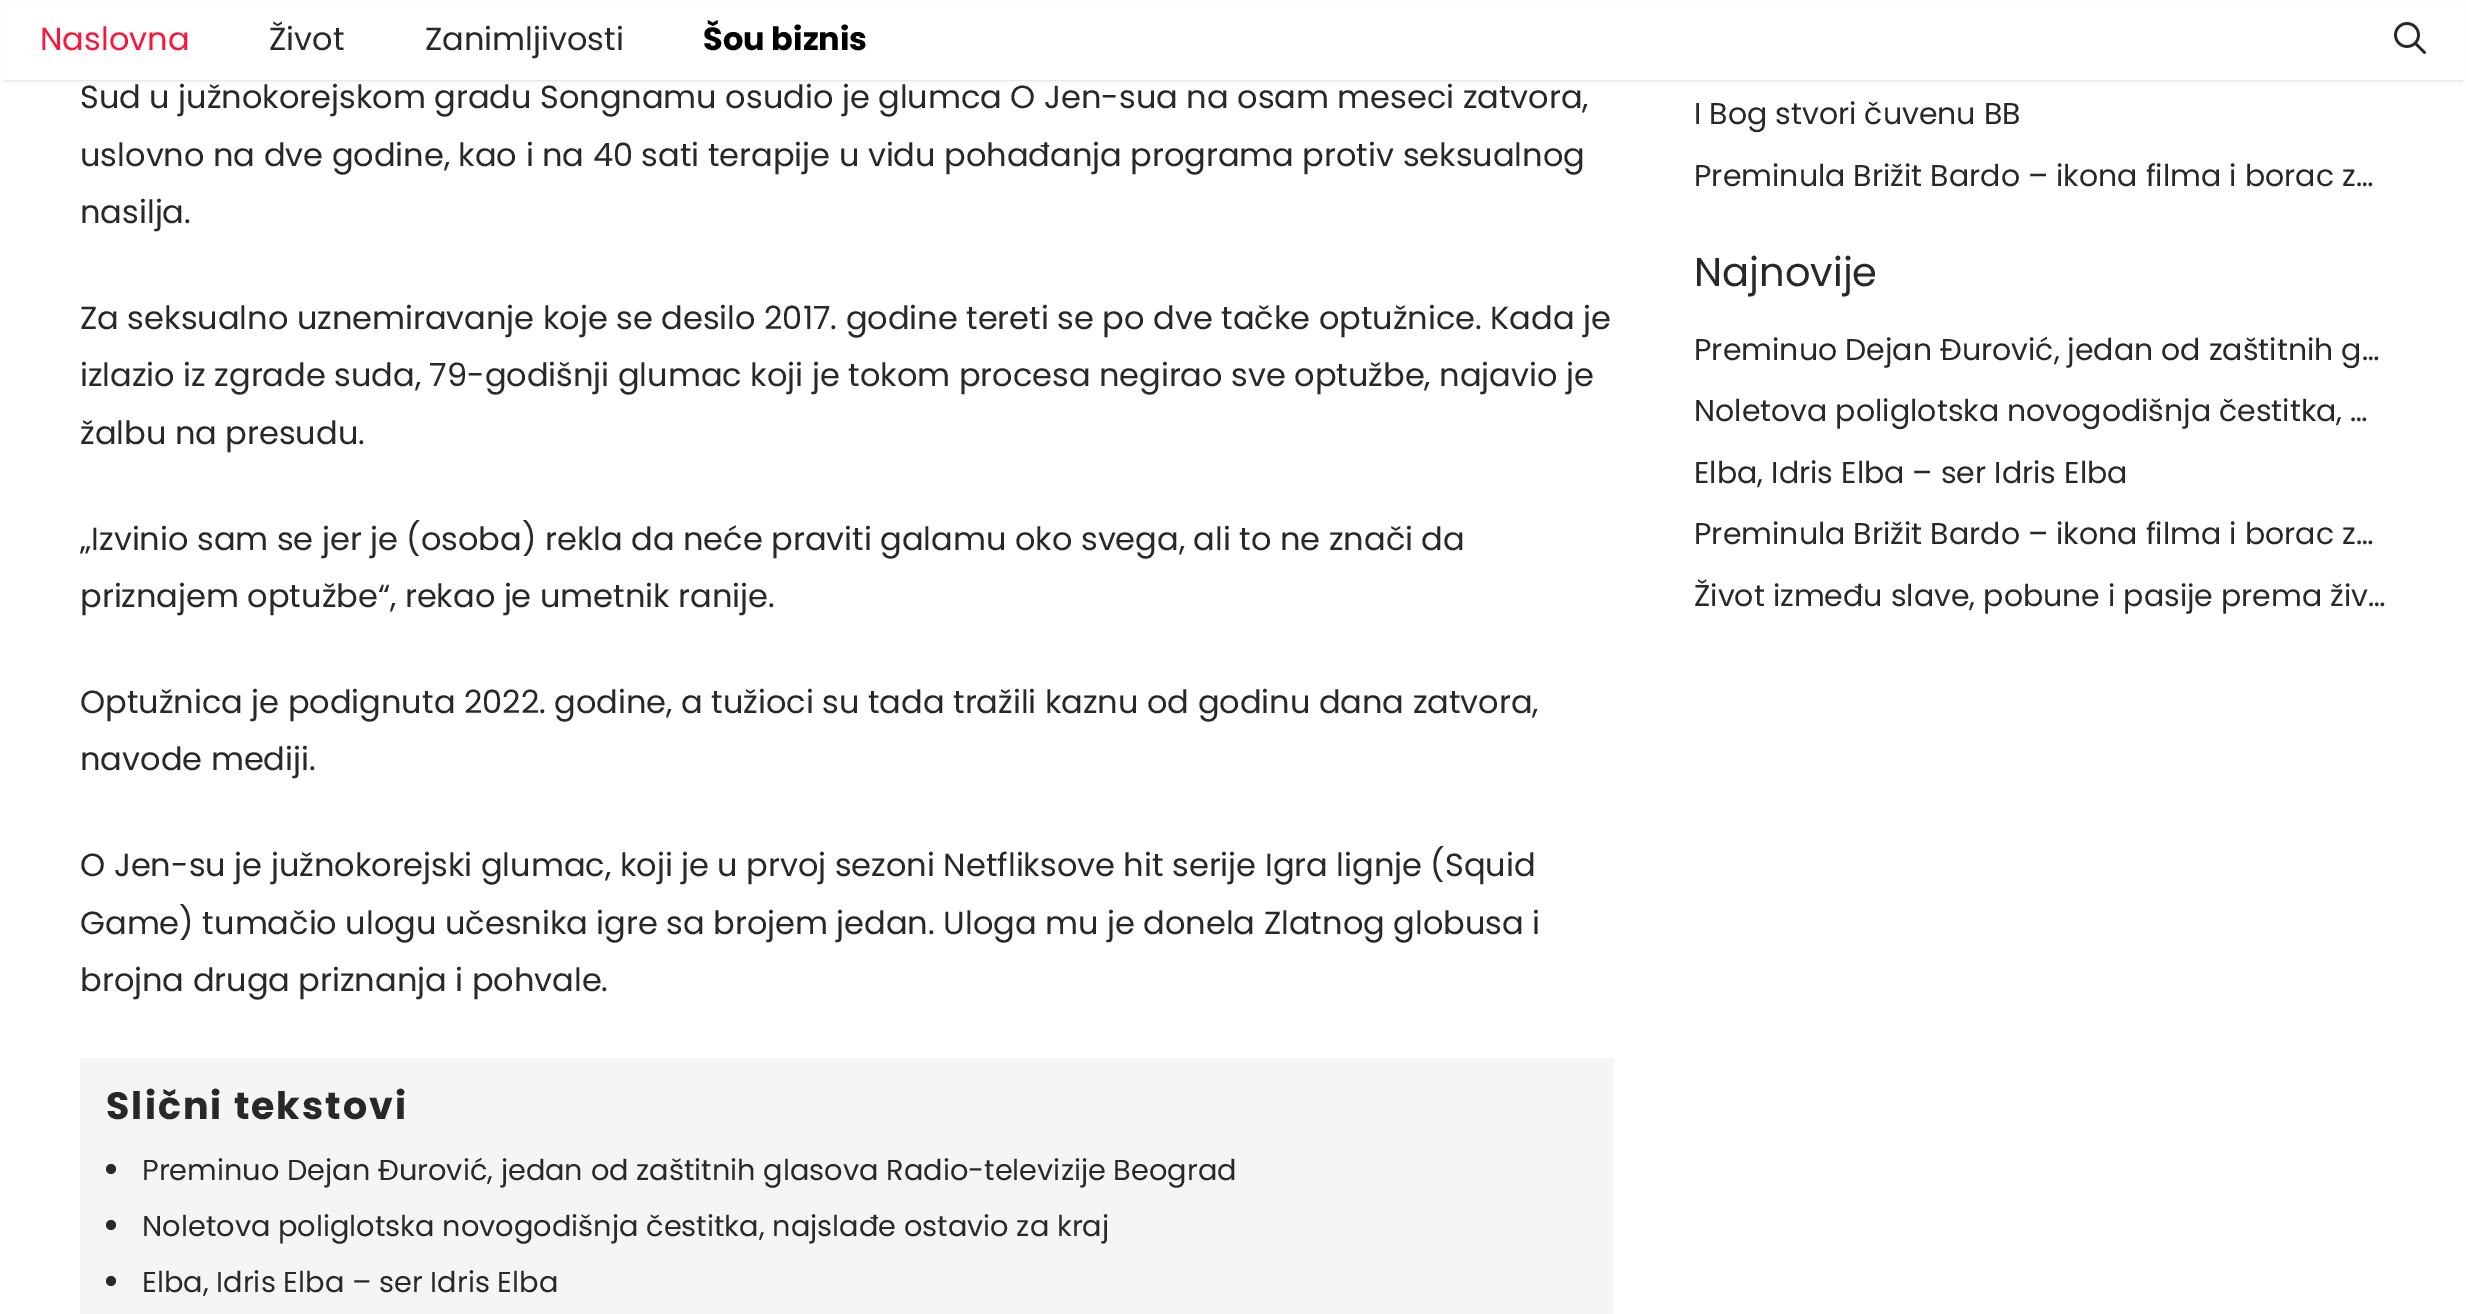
%!PS
<< /PageSize [2466 1314] /PageUsesTransparency true >> setpagedevice
/rgb { 3 { 255 div 3 1 roll } repeat setrgbcolor } def
/font { [ exch dup neg 0 0 3 -1 roll 0 0 ] selectfont } def
/text { moveto show } def
/alpha { dup .setfillconstantalpha .setstrokeconstantalpha } def
/circle { newpath 0 360 arc closepath } def
/roundrect { 5 dict begin { /r /h /w /y /x } { exch def } forall
  x r add y moveto x w add y 2 copy h add r arct x w add y h add x 1 index r arct
  x y h add x y r arct x y 2 copy exch w add exch r arct closepath end } def
/shadow { 12 dict begin { /a /b /q /h /w /y /x } { exch def } forall gsave /was 0 def
  9 -2 -9 { dup b mul 4 div /e exch def 1 sub .425 mul 2.718 exch exp 1 add a .99 .min exch div /now exch def
    1 1 now sub 1 was sub div sub alpha /was now def
    w h .min e 2 mul add 0 gt { x e sub y e sub w e 2 mul add h e 2 mul add
      q e add b .6 mul add w h .min 2 div e add .min 0 .max roundrect fill } if } for grestore end } def
/picture { 5 dict begin { /h /w /y /x /name } { exch def } forall
  gsave x y translate w h scale
  w h 8 [w 0 0 h 0 0] name (r) file false 3 colorimage grestore end } def
0 .pushpdf14devicefilter
0 1314 translate 1 -1 scale
4 setmiterlimit
255 255 255 rgb
0 0 2466 1314 rectfill
0 0 0 rgb
4 8 2458 72 0 2 0.2 shadow
255 255 255 rgb
1 5 2464 75 rectfill
(img_01.rgb) 2394 22 32 32 picture
245 245 245 rgb
80 1058 1534 256 rectfill
38 40 42 rgb
111 1169 5 circle fill
111 1225 5 circle fill
111 1281 5 circle fill
/Poppins-Regular 32 font
251 21 58 rgb
(Naslovna) 40 50 text
38 40 42 rgb
(Život) 269 50 text
(Zanimljivosti) 425 50 text
/Poppins-Bold 32 font
0 0 0 rgb
(Šou biznis) 703 50 text
/Poppins-Regular 32 font
38 40 42 rgb
(Sud u južnokorejskom gradu Songnamu osudio je glumca O Jen-sua na osam meseci zatvora,) 80 108 text
(uslovno na dve godine, kao i na 40 sati terapije u vidu pohađanja programa protiv seksualnog) 80 166 text
(nasilja.) 80 223 text
(Za seksualno uznemiravanje koje se desilo 2017. godine tereti se po dve tačke optužnice. Kada je) 80 329 text
(izlazio iz zgrade suda, 79-godišnji glumac koji je tokom procesa negirao sve optužbe, najavio je) 80 386 text
(žalbu na presudu.) 80 444 text
(„Izvinio sam se jer je \(osoba\) rekla da neće praviti galamu oko svega, ali to ne znači da) 80 550 text
(priznajem optužbe“, rekao je umetnik ranije.) 80 607 text
(Optužnica je podignuta 2022. godine, a tužioci su tada tražili kaznu od godinu dana zatvora,) 80 713 text
(navode mediji.) 80 770 text
(O Jen-su je južnokorejski glumac, koji je u prvoj sezoni Netfliksove hit serije Igra lignje \(Squid) 80 876 text
(Game\) tumačio ulogu učesnika igre sa brojem jedan. Uloga mu je donela Zlatnog globusa i) 80 934 text
(brojna druga priznanja i pohvale.) 80 991 text
/Poppins-Bold 38 font
106 1119 moveto 2 0 (Slični tekstovi) ashow
/Poppins-Regular 28.8 font
(Preminuo Dejan Đurović, jedan od zaštitnih glasova Radio-televizije Beograd) 142 1180 text
(Noletova poliglotska novogodišnja čestitka, najslađe ostavio za kraj) 142 1236 text
(Elba, Idris Elba – ser Idris Elba) 142 1292 text
/Poppins-Regular 30 font
(I Bog stvori čuvenu BB) 1694 124 text
(Preminula Brižit Bardo – ikona filma i borac z…) 1694 186 text
/Poppins-Regular 40 font
(Najnovije) 1694 286 text
/Poppins-Regular 30 font
(Preminuo Dejan Đurović, jedan od zaštitnih g…) 1694 360 text
(Noletova poliglotska novogodišnja čestitka, …) 1694 421 text
(Elba, Idris Elba – ser Idris Elba) 1694 483 text
(Preminula Brižit Bardo – ikona filma i borac z…) 1694 544 text
(Život između slave, pobune i pasije prema živ…) 1694 606 text
.poppdf14devicefilter showpage
